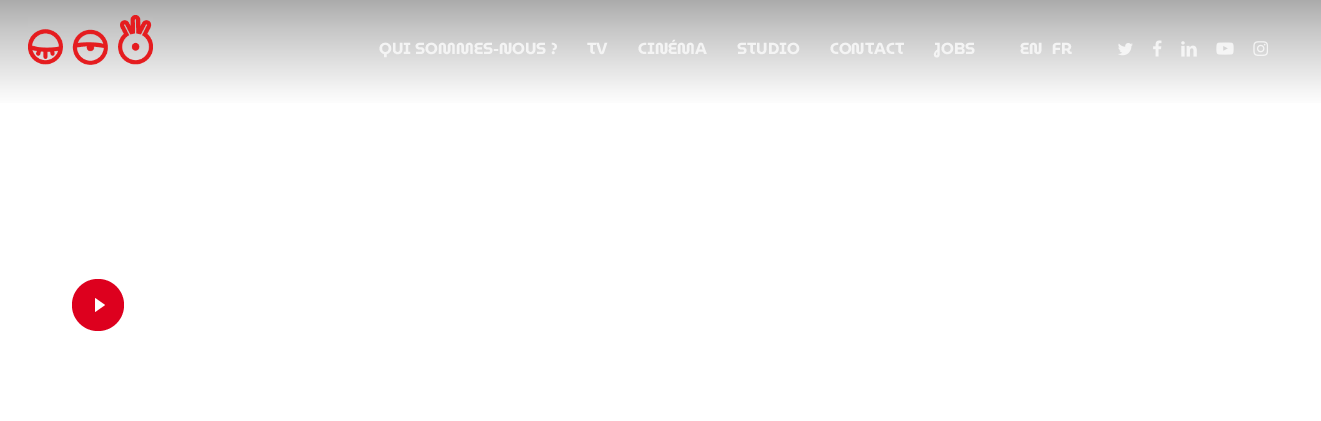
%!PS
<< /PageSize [1321 421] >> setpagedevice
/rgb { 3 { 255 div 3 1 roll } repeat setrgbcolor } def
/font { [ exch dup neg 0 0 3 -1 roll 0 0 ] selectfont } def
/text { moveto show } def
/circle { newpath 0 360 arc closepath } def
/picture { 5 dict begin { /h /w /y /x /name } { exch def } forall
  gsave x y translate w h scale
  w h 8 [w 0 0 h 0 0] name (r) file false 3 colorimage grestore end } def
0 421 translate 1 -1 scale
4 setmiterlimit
255 255 255 rgb
0 0 1321 421 rectfill
gsave 0 0 moveto 1321 0 rlineto 0 103 rlineto -1321 0 rlineto closepath clip newpath
<< /ShadingType 2 /ColorSpace /DeviceRGB /Coords [661 108 661 0] /Extend [true true] /Function << /FunctionType 3 /Domain [0 1] /Functions [<< /FunctionType 2 /Domain [0 1] /C0 [1 1 1] /C1 [1 1 1] /N 1 >> << /FunctionType 2 /Domain [0 1] /C0 [1 1 1] /C1 [0.961 0.961 0.961] /N 1 >> << /FunctionType 2 /Domain [0 1] /C0 [0.961 0.961 0.961] /C1 [0.773 0.773 0.773] /N 1 >> << /FunctionType 2 /Domain [0 1] /C0 [0.773 0.773 0.773] /C1 [0.671 0.671 0.671] /N 1 >>] /Bounds [0.01 0.16 0.75] /Encode [0 1 0 1 0 1 0 1] >> >> shfill grestore
(img_01.rgb) 28 15 125 50 picture
(img_02.rgb) 1118 43 15 13 picture
(img_03.rgb) 1153 40 9 17 picture
(img_04.rgb) 1181 41 16 16 picture
(img_05.rgb) 1216 42 18 13 picture
(img_06.rgb) 1253 41 15 15 picture
221 0 30 rgb
98 305 26 circle fill
255 255 255 rgb
95 298 moveto 0 14 rlineto 10 -7 rlineto closepath fill
/MuseoModerno-Bold 16 font
244 244 244 rgb
(QUI SOMMES-NOUS ?) 379 54 text
(TV) 587 54 text
(CINÉMA) 638 54 text
(STUDIO) 737 54 text
(CONTACT) 830 54 text
(JOBS) 934 54 text
(EN) 1020 54 text
(FR) 1052 54 text
showpage
